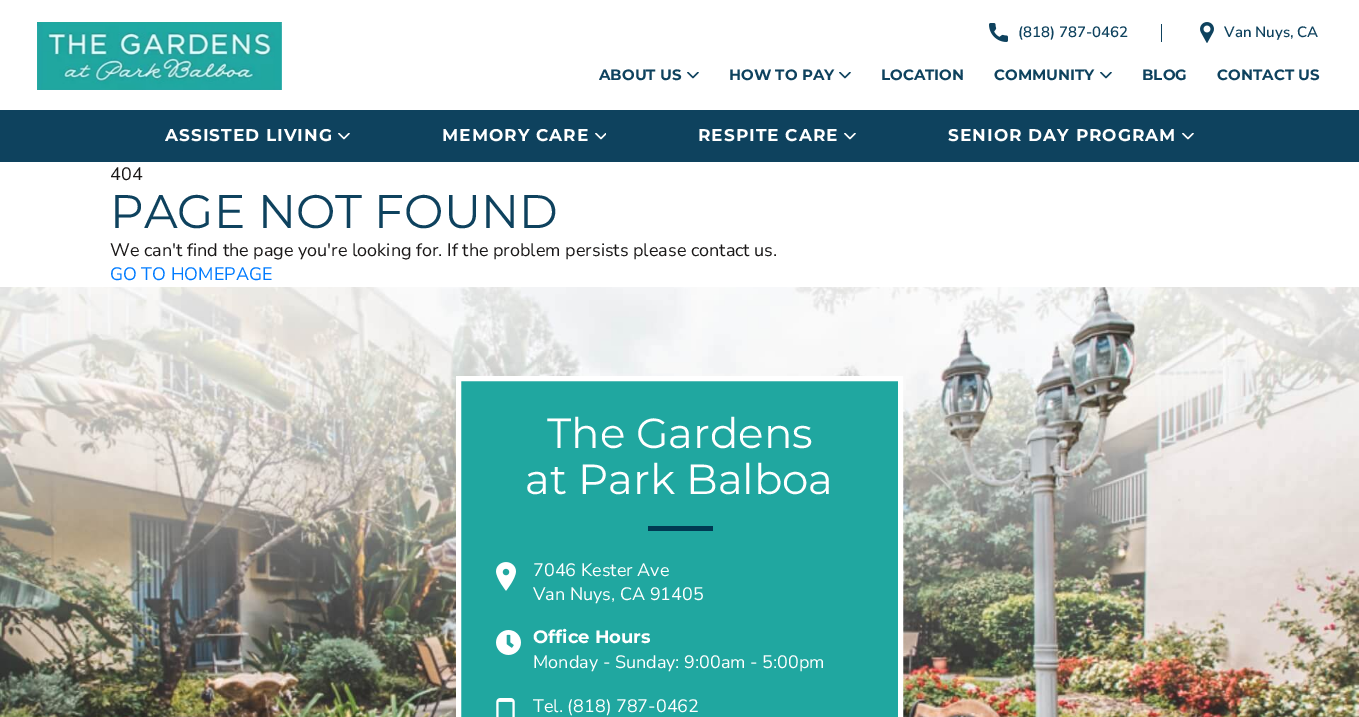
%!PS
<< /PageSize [1359 717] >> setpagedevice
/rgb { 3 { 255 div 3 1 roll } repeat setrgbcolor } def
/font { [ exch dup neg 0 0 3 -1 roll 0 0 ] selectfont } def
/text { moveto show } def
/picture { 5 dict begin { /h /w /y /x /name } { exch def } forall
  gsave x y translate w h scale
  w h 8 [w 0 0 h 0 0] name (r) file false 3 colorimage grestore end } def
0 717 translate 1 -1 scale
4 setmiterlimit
255 255 255 rgb
0 0 1359 717 rectfill
(img_01.rgb) 37 22 245 68 picture
(img_02.rgb) 989 23 19 19 picture
14 66 94 rgb
1161 24 1 18 rectfill
(img_03.rgb) 1200 22 14 21 picture
(img_04.rgb) 687 72 12 7 picture
(img_04.rgb) 839 72 12 7 picture
(img_04.rgb) 1100 72 12 7 picture
0 110 1359 52 rectfill
(img_05.rgb) 338 133 12 7 picture
(img_06.rgb) 595 133 11 7 picture
(img_05.rgb) 844 133 12 7 picture
(img_05.rgb) 1182 133 12 7 picture
(img_07.rgb) 0 287 1359 430 picture
32 167 160 rgb
458.5 378.5 moveto 442 0 rlineto 0 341 rlineto -442 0 rlineto closepath gsave fill grestore
255 255 255 rgb
5 setlinewidth
stroke
0 58 82 rgb
648 526 65 5 rectfill
(img_08.rgb) 496 562 20 29 picture
(img_09.rgb) 496 630 25 25 picture
(img_10.rgb) 496 698 19 19 picture
/NunitoSans-SemiBold 15 font
14 66 94 rgb
(\(818\) 787-0462) 1018 37 text
(Van Nuys, CA) 1224 37 text
/Montserrat-Bold 15 font
(ABOUT US) 599 80 text
(HOW TO PAY) 729 80 text
(LOCATION) 881 80 text
(COMMUNITY) 994 80 text
(BLOG) 1142 80 text
(CONTACT US) 1217 80 text
/Montserrat-Bold 17 font
255 255 255 rgb
165 141 moveto 1 0 (ASSISTED LIVING) ashow
442 141 moveto 1 0 (MEMORY CARE) ashow
698 141 moveto 1 0 (RESPITE CARE) ashow
948 141 moveto 1 0 (SENIOR DAY PROGRAM) ashow
/NunitoSans-Regular 18 font
26 24 24 rgb
(404) 110 180 text
/Montserrat-Regular 47 font
14 66 94 rgb
(PAGE NOT FOUND) 110 228 text
/NunitoSans-Regular 18 font
26 24 24 rgb
(We can't find the page you're looking for. If the problem persists please contact us.) 110 256 text
0 123 255 rgb
(GO TO HOMEPAGE) 110 280 text
/Montserrat-Regular 42 font
255 255 255 rgb
(The Gardens) 547 448 text
(at Park Balboa) 525 494 text
/NunitoSans-Regular 18 font
(7046 Kester Ave) 533 576 text
(Van Nuys, CA 91405) 533 600 text
/Montserrat-Bold 18 font
(Office Hours) 533 643 text
/NunitoSans-Regular 18 font
(Monday - Sunday: 9:00am - 5:00pm) 533 668 text
(Tel. \(818\) 787-0462) 533 712 text
showpage
